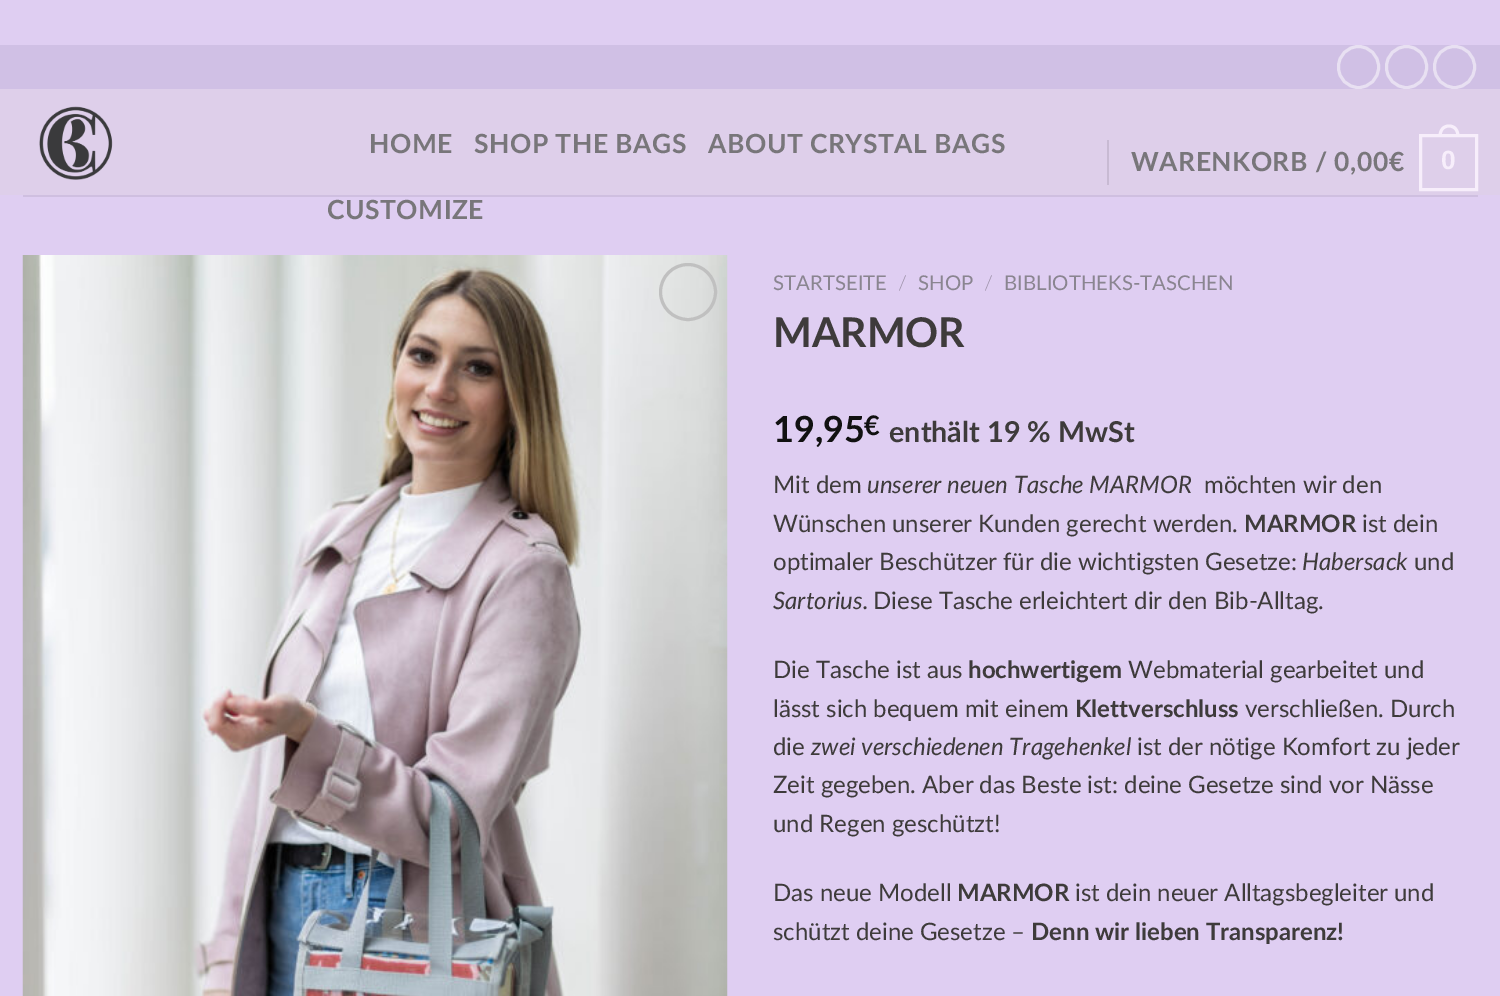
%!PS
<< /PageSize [1500 996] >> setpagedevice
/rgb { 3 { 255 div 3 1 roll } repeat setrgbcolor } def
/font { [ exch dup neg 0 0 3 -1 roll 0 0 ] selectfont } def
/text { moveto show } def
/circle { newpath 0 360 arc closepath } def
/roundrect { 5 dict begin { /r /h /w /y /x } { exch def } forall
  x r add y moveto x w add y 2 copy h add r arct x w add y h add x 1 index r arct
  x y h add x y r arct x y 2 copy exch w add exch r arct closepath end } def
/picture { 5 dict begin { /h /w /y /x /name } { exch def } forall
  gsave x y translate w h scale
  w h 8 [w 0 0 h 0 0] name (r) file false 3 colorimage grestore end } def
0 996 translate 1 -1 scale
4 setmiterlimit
223 206 242 rgb
0 0 1500 996 rectfill
208 192 229 rgb
0 45 1500 44 rectfill
232 224 242 rgb
3 setlinewidth
1338.5 46.5 40 41 20 roundrect stroke
1386.5 46.5 40 41 20 roundrect stroke
1434.5 46.5 40 41 20 roundrect stroke
222 207 234 rgb
0 89 1500 106 rectfill
(img_01.rgb) 39 106 74 74 picture
200 186 211 rgb
1107 140 2 45 rectfill
247 238 251 rgb
1420.5 135.5 56 54 rectstroke
1449 124.5 moveto 7 0 10.5 5.5 10.5 12 rcurveto -21 0 rlineto 0 -6.5 3.5 -12 10.5 -12 rcurveto closepath 1449 127.5 moveto 5.5 0 7.5 4.5 7.5 9 rcurveto -15 0 rlineto 0 -4.5 2 -9 7.5 -9 rcurveto closepath eofill
207 191 224 rgb
23 195 1455 2 rectfill
(img_02.rgb) 22 255 706 741 picture
192 192 192 rgb
688 292 27.5 circle stroke
/Lato-Bold 26.4 font
120 118 122 rgb
369 153 moveto 0.5 0 (HOME) ashow
474 153 moveto 0.5 0 (SHOP THE BAGS) ashow
708 153 moveto 0.5 0 (ABOUT CRYSTAL BAGS) ashow
327 219 moveto 0.5 0 (CUSTOMIZE) ashow
1131 171 moveto 0.5 0 (WARENKORB / 0,00€) ashow
/LiberationSans-Bold 26.4 font
247 238 251 rgb
1441 169 moveto 0.5 0 (0) ashow
/Lato-Regular 20.4 font
138 133 144 rgb
(STARTSEITE) 773 290 text
/Lato-Light 20.4 font
157 146 169 rgb
(/) 898 290 text
/Lato-Regular 20.4 font
138 133 144 rgb
(SHOP) 918 290 text
/Lato-Light 20.4 font
157 146 169 rgb
(/) 984 290 text
/Lato-Regular 20.4 font
138 133 144 rgb
(BIBLIOTHEKS-TASCHEN) 1004 290 text
/Lato-Bold 41 font
62 59 59 rgb
(MARMOR) 773 347 text
/Lato-Bold 36 font
17 17 17 rgb
(19,95) 773 442 text
/Lato-Bold 27 font
(€) 864 435 text
/Lato-Bold 28.75 font
62 59 59 rgb
(enthält 19 % MwSt) 889 442 text
/Lato-Regular 24 font
(Mit dem) 773 493 text
/Lato-Italic 24 font
(unserer neuen Tasche MARMOR) 867 493 text
/Lato-Regular 24 font
(möchten wir den) 1204 493 text
(Wünschen unserer Kunden gerecht werden.) 773 532 text
/Lato-Bold 24 font
(MARMOR) 1244 532 text
/Lato-Regular 24 font
(ist dein) 1362 532 text
(optimaler Beschützer für die wichtigsten Gesetze:) 773 570 text
/Lato-Italic 24 font
(Habersack) 1302 570 text
/Lato-Regular 24 font
(und) 1414 570 text
/Lato-Italic 24 font
(Sartorius.) 773 609 text
/Lato-Regular 24 font
(Diese Tasche erleichtert dir den Bib-Alltag.) 873 609 text
(Die Tasche ist aus) 773 678 text
/Lato-Bold 24 font
(hochwertigem) 968 678 text
/Lato-Regular 24 font
(Webmaterial gearbeitet und) 1128 678 text
(lässt sich bequem mit einem) 773 717 text
/Lato-Bold 24 font
(Klettverschluss) 1075 717 text
/Lato-Regular 24 font
(verschließen. Durch) 1245 717 text
(die) 773 755 text
/Lato-Italic 24 font
(zwei verschiedenen Tragehenkel) 811 755 text
/Lato-Regular 24 font
(ist der nötige Komfort zu jeder) 1137 755 text
(Zeit gegeben. Aber das Beste ist: deine Gesetze sind vor Nässe) 773 793 text
(und Regen geschützt!) 773 832 text
(Das neue Modell) 773 901 text
/Lato-Bold 24 font
(MARMOR) 957 901 text
/Lato-Regular 24 font
(ist dein neuer Alltagsbegleiter und) 1075 901 text
(schützt deine Gesetze –) 773 940 text
/Lato-Bold 24 font
(Denn wir lieben Transparenz!) 1031 940 text
showpage
